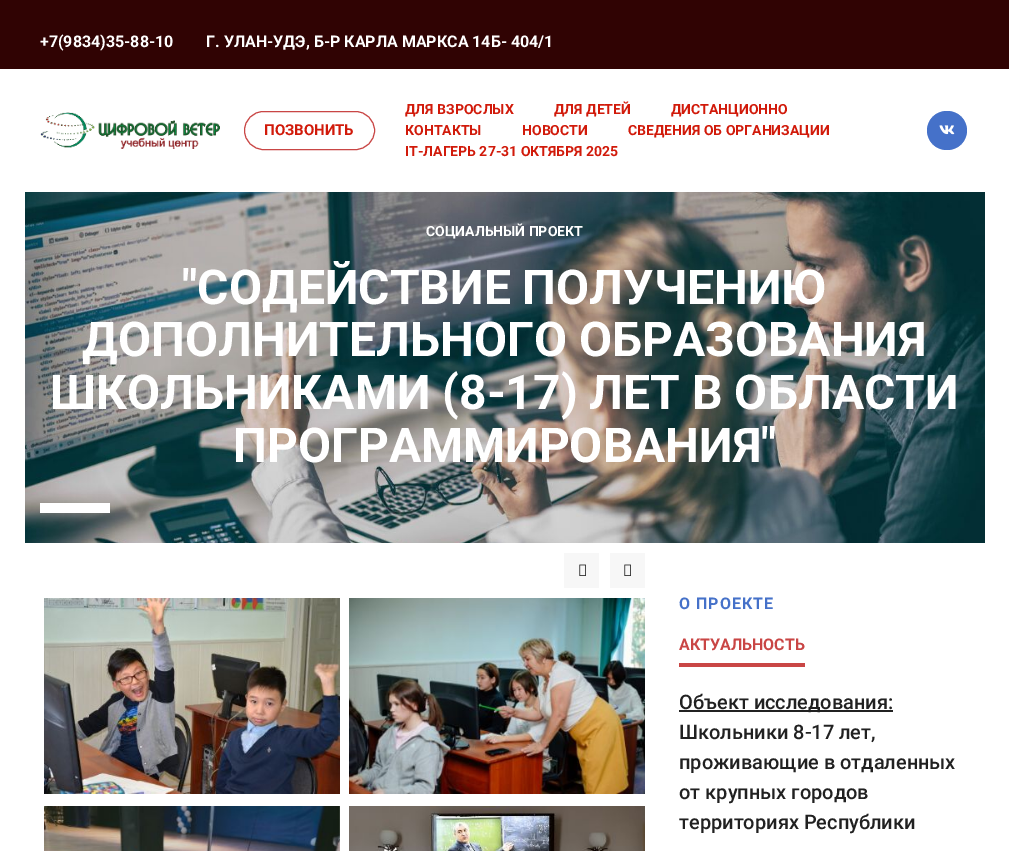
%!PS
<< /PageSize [1009 851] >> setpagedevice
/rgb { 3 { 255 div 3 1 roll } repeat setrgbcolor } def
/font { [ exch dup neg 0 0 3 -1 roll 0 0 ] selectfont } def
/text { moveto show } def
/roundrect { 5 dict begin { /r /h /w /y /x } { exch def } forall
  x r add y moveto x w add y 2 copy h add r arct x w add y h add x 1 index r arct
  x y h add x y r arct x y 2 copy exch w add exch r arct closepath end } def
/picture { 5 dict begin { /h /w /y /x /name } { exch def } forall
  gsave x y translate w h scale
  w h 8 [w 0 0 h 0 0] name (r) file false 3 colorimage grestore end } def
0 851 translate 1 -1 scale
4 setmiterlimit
255 255 255 rgb
0 0 1009 851 rectfill
48 3 3 rgb
0 0 1009 69 rectfill
(img_01.rgb) 40 112 180 37 picture
201 70 69 rgb
244.5 111.5 130 38 19 roundrect stroke
69 113 201 rgb
927 111 40 39 19.5 roundrect fill
(img_02.rgb) 939 125 16 10 picture
(img_03.rgb) 25 192 960 351 picture
255 255 255 rgb
40 503 70 10 rectfill
247 247 247 rgb
564 553 35 35 rectfill
(img_04.rgb) 579 564 7 12 picture
610 553 35 35 rectfill
(img_04.rgb) 624 564 7 12 picture
(img_05.rgb) 44 598 296 196 picture
(img_06.rgb) 44 806 296 45 picture
(img_07.rgb) 349 598 296 196 picture
(img_08.rgb) 349 806 296 45 picture
201 70 69 rgb
679 663 126 4 rectfill
33 33 33 rgb
679 710 214 2 rectfill
/Roboto-Bold 16 font
255 255 255 rgb
(+7\(9834\)35-88-10) 40 47 text
(Г. УЛАН-УДЭ, Б-Р КАРЛА МАРКСА 14Б- 404/1) 206 47 text
/Roboto-Bold 15 font
209 26 10 rgb
(ПОЗВОНИТЬ) 264 135 text
/Roboto-Bold 14 font
(ДЛЯ ВЗРОСЛЫХ) 405 114 text
(ДЛЯ ДЕТЕЙ) 554 114 text
(ДИСТАНЦИОННО) 671 114 text
(КОНТАКТЫ) 405 135 text
(НОВОСТИ) 522 135 text
(СВЕДЕНИЯ ОБ ОРГАНИЗАЦИИ) 628 135 text
(IT-ЛАГЕРЬ 27-31 ОКТЯБРЯ 2025) 405 156 text
255 255 255 rgb
(СОЦИАЛЬНЫЙ ПРОЕКТ) 426 236 text
/Roboto-Bold 48 font
("СОДЕЙСТВИЕ ПОЛУЧЕНИЮ) 182 304 text
(ДОПОЛНИТЕЛЬНОГО ОБРАЗОВАНИЯ) 82 356 text
(ШКОЛЬНИКАМИ \(8-17\) ЛЕТ В ОБЛАСТИ) 50 409 text
(ПРОГРАММИРОВАНИЯ") 233 462 text
/Roboto-Bold 16 font
69 113 201 rgb
679 609 moveto 1 0 (О ПРОЕКТЕ) ashow
201 70 69 rgb
(АКТУАЛЬНОСТЬ) 679 650 text
/Roboto-Medium 20 font
33 33 33 rgb
(Объект исследования:) 679 709 text
(Школьники 8-17 лет,) 679 739 text
(проживающие в отдаленных) 679 769 text
(от крупных городов) 679 799 text
(территориях Республики) 679 829 text
showpage
